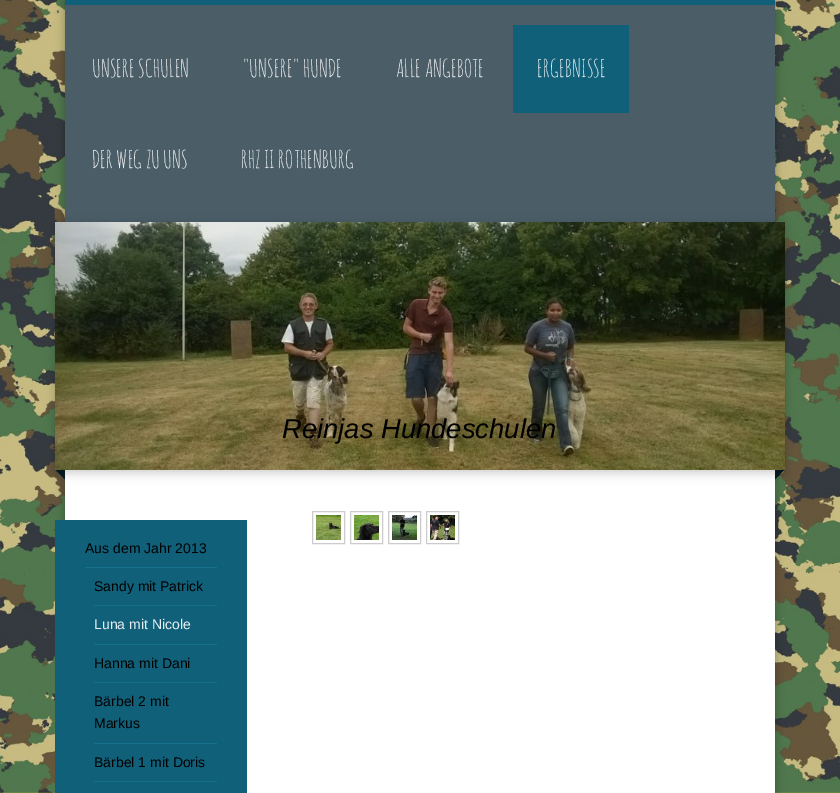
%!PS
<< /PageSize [840 793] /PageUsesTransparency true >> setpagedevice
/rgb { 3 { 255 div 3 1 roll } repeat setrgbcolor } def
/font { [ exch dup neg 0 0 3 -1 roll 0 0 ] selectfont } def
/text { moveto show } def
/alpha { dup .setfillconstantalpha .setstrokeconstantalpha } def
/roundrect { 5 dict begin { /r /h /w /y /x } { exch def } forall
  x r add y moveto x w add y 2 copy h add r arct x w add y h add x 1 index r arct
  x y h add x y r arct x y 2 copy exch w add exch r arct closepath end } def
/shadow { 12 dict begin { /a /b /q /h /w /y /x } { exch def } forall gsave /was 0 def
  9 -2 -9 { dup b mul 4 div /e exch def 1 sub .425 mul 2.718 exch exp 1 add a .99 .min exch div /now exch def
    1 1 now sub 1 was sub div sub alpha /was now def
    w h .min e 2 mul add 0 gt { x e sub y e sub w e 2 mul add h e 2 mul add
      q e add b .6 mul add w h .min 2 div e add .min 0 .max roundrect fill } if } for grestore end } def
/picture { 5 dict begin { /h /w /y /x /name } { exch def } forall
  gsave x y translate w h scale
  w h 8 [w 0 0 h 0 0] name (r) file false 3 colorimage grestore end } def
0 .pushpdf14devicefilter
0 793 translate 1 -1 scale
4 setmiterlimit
255 255 255 rgb
0 0 840 793 rectfill
(img_01.rgb) 0 0 840 793 picture
0 0 0 rgb
65 0 710 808 0 5 0.3 shadow
75 94 104 rgb
65 5 710 217 rectfill
17 96 121 rgb
65 0 710 5 rectfill
513 25 116 88 rectfill
255 255 255 rgb
65 470 710 323 rectfill
0 0 0 rgb
55 225 730 248 0 5 0.2 shadow
4 25 32 rgb
65 459.5 moveto 0 20 rlineto -10 -10 rlineto closepath fill
775 479.5 moveto 0 -20 rlineto 10 10 rlineto closepath fill
(img_02.rgb) 55 222 730 248 picture
204 204 204 rgb
312.5 511.5 32 32 rectstroke
(img_03.rgb) 316 515 25 25 picture
350.5 511.5 32 32 rectstroke
(img_04.rgb) 354 515 25 25 picture
388.5 511.5 32 32 rectstroke
(img_05.rgb) 392 515 25 25 picture
426.5 511.5 32 32 rectstroke
(img_06.rgb) 430 515 25 25 picture
17 96 121 rgb
55 520 192 273 rectfill
20 112 141 rgb
85 567 132 1 rectfill
94 605 123 1 rectfill
94 644 123 1 rectfill
94 682 123 1 rectfill
94 743 123 1 rectfill
94 781 123 1 rectfill
/AmaticSC-Regular 24 font
237 239 240 rgb
(UNSERE SCHULEN) 92 77 text
("UNSERE" HUNDE) 242 77 text
(ALLE ANGEBOTE) 396 77 text
231 239 242 rgb
(ERGEBNISSE) 537 77 text
237 239 240 rgb
(DER WEG ZU UNS) 92 168 text
(RHZ II ROTHENBURG) 241 168 text
/LiberationSans-Italic 27.4 font
0 0 0 rgb
(Reinjas Hundeschulen) 282 438 text
/LiberationSans-Regular 14 font
(Aus dem Jahr 2013) 85 553 text
(Sandy mit Patrick) 94 591 text
231 239 242 rgb
(Luna mit Nicole) 94 629 text
0 0 0 rgb
(Hanna mit Dani) 94 668 text
(Bärbel 2 mit) 94 706 text
(Markus) 94 728 text
(Bärbel 1 mit Doris) 94 767 text
.poppdf14devicefilter showpage
